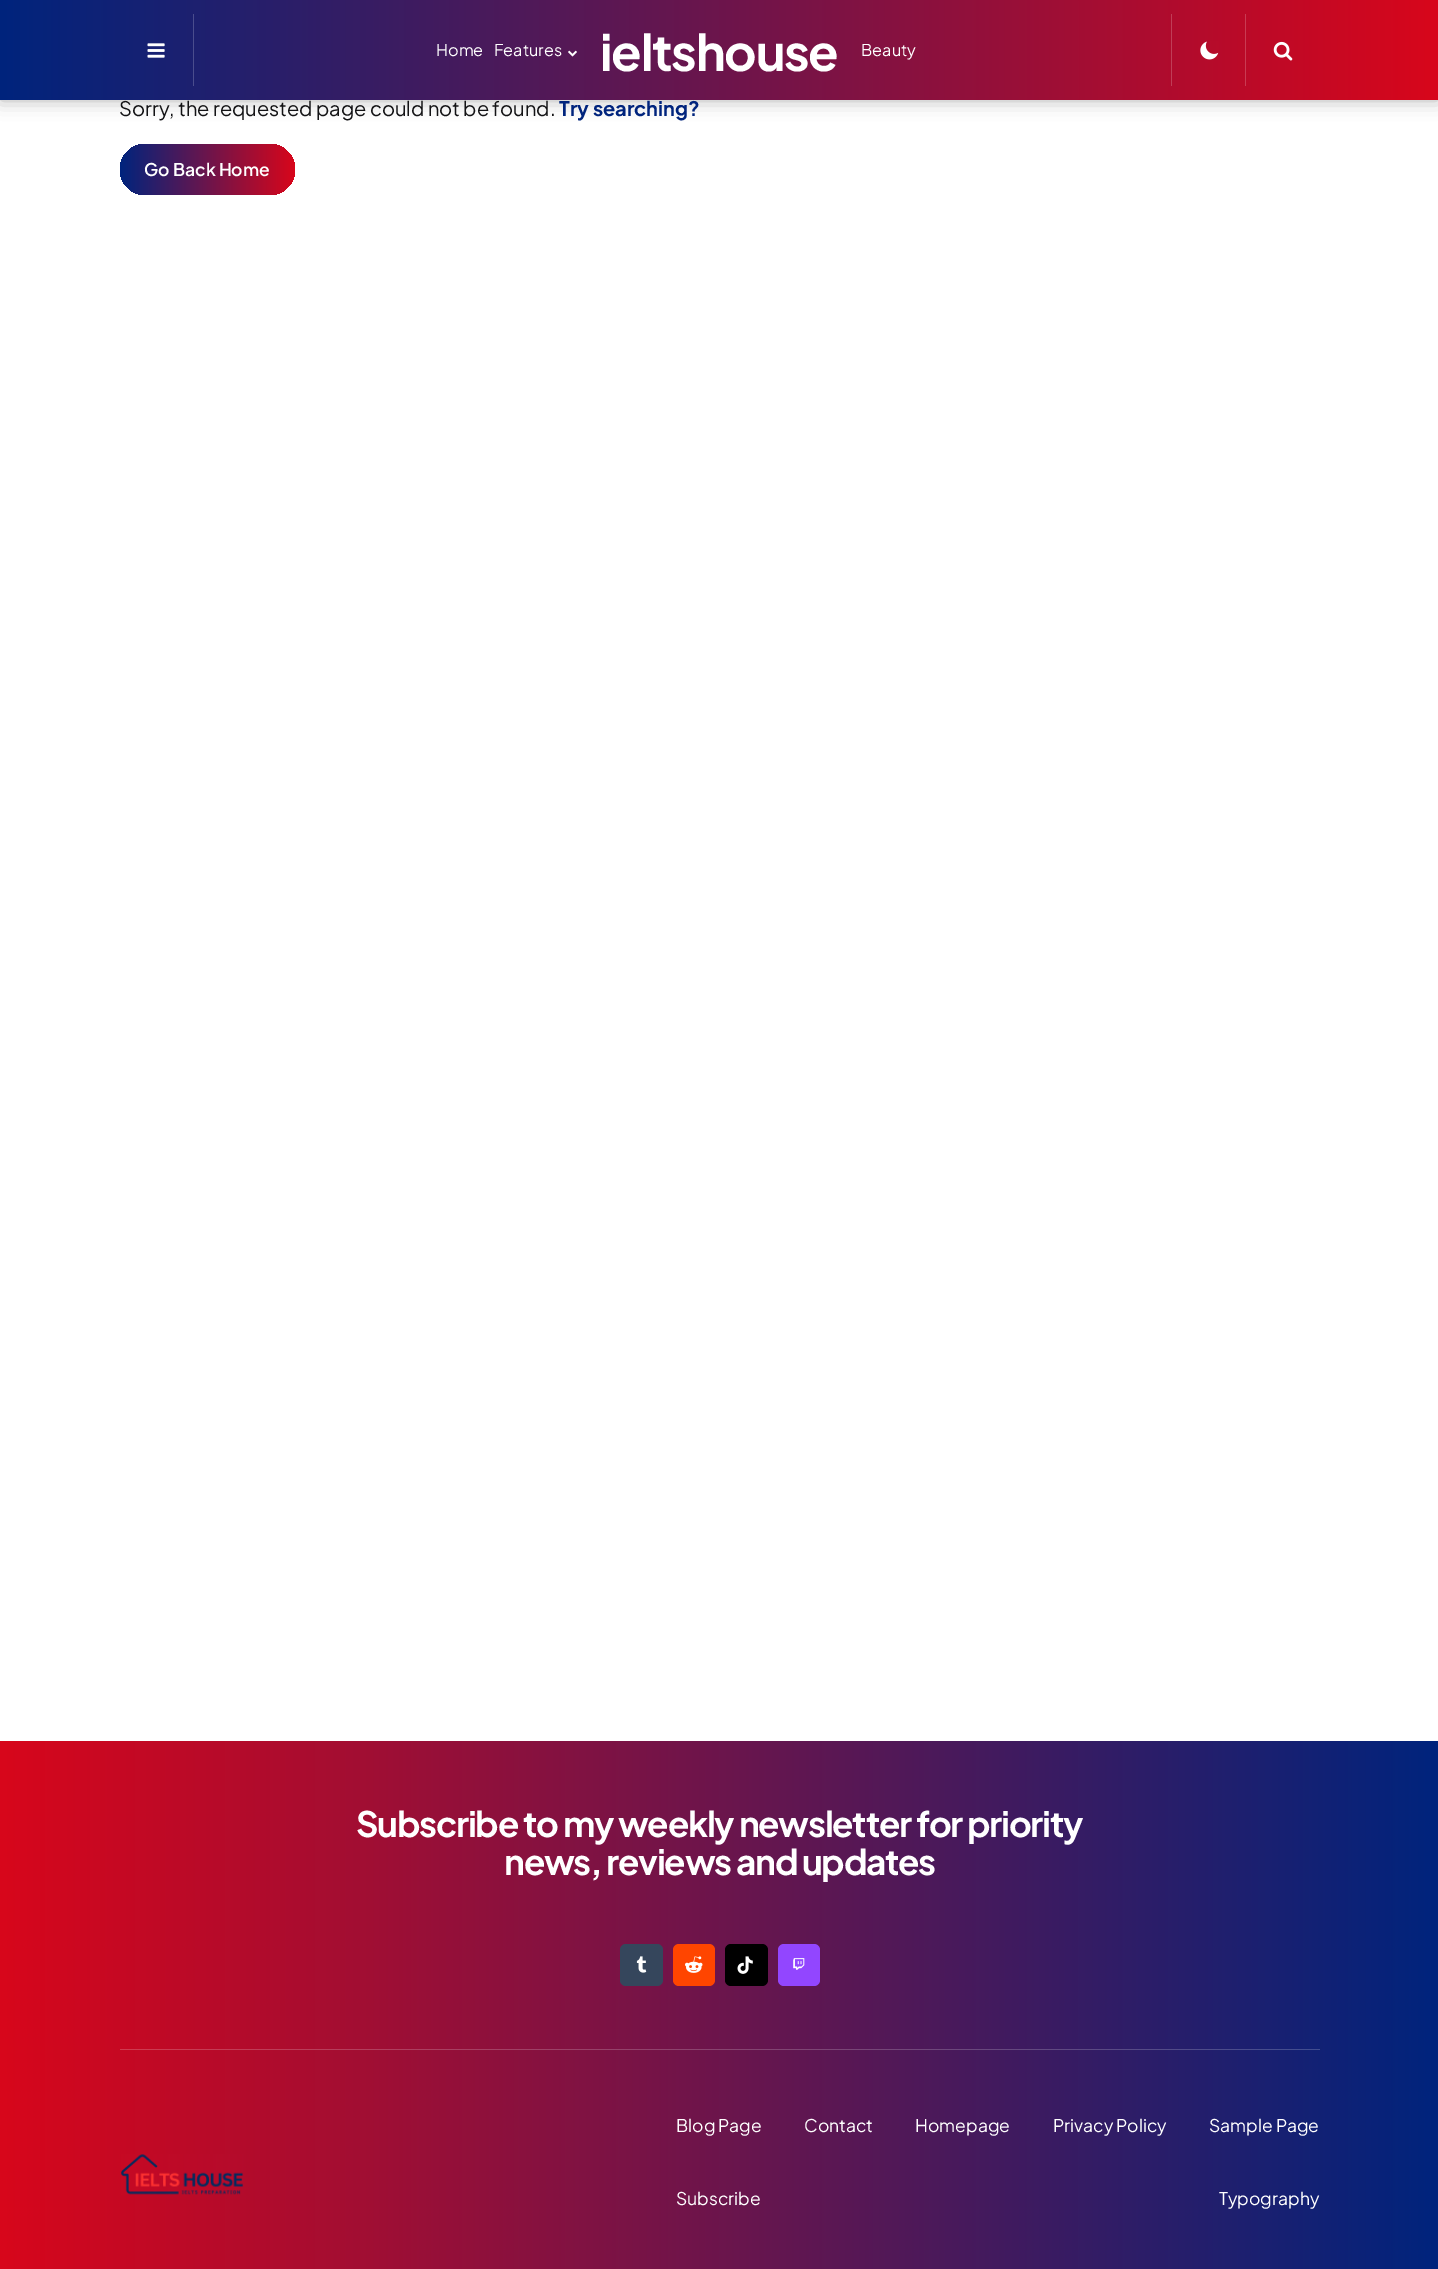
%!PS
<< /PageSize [1438 2269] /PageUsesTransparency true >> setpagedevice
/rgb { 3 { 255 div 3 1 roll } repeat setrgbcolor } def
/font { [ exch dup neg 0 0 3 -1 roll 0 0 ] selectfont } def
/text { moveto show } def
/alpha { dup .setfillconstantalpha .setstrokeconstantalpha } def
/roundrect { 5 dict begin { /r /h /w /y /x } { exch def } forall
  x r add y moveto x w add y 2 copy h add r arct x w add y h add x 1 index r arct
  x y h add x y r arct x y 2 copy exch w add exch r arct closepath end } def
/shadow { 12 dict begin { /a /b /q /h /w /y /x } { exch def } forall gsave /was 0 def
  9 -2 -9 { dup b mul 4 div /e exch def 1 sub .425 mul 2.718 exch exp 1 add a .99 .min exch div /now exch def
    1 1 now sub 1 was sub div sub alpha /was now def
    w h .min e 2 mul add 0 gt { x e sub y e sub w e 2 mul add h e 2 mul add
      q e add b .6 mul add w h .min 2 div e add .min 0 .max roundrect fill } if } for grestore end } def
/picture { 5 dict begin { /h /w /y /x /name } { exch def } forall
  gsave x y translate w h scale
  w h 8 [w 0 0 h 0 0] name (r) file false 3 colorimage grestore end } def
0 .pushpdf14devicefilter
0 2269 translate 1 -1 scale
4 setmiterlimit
255 255 255 rgb
0 0 1438 2269 rectfill
0 0 0 rgb
0 0 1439 100 0 9.5 0.3 shadow
gsave 0 0 moveto 1438 0 rlineto 0 100 rlineto -1438 0 rlineto closepath clip newpath
<< /ShadingType 2 /ColorSpace /DeviceRGB /Coords [0 50 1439 50] /Extend [true true] /Function << /FunctionType 2 /Domain [0 1] /C0 [0 0.141 0.49] /C1 [0.847 0.024 0.106] /N 1 >> >> shfill grestore
74 77 141 rgb
193 14 1 72 rectfill
(img_01.rgb) 147 43 18 15 picture
(img_02.rgb) 568 50 9 7 picture
192 61 87 rgb
1171 14 1 72 rectfill
(img_03.rgb) 1200 41 19 19 picture
201 59 83 rgb
1245 14 1 72 rectfill
(img_04.rgb) 1273 41 20 20 picture
gsave 120 144 175 51 25.5 roundrect clip newpath
<< /ShadingType 2 /ColorSpace /DeviceRGB /Coords [120 169 295 169] /Extend [true true] /Function << /FunctionType 2 /Domain [0 1] /C0 [0 0.141 0.49] /C1 [0.847 0.024 0.106] /N 1 >> >> shfill grestore
gsave 0 1741 moveto 1438 0 rlineto 0 528 rlineto -1438 0 rlineto closepath clip newpath
<< /ShadingType 2 /ColorSpace /DeviceRGB /Coords [0 2021 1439 2021] /Extend [true true] /Function << /FunctionType 2 /Domain [0 1] /C0 [0.847 0.024 0.106] /C1 [0 0.141 0.49] /N 1 >> >> shfill grestore
gsave 120 2049 moveto 1200 0 rlineto 0 1 rlineto -1200 0 rlineto closepath clip newpath
<< /ShadingType 2 /ColorSpace /DeviceRGB /Coords [0 2021 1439 2021] /Extend [true true] /Function << /FunctionType 2 /Domain [0 1] /C0 [0.878 0.22 0.286] /C1 [0.2 0.314 0.592] /N 1 >> >> shfill grestore
53 70 92 rgb
620 1944 43 42 6 roundrect fill
(img_05.rgb) 636 1956 11 17 picture
255 69 0 rgb
673 1944 42 42 6 roundrect fill
(img_06.rgb) 685 1956 18 17 picture
0 0 0 rgb
725 1944 43 42 6 roundrect fill
(img_07.rgb) 737 1956 16 18 picture
146 70 255 rgb
778 1944 42 42 6 roundrect fill
(img_08.rgb) 793 1958 12 12 picture
(img_09.rgb) 121 2154 123 41 picture
/PlusJakartaSans-Regular 16.25 font
255 255 255 rgb
(Home) 436 56 text
(Features) 494 56 text
/PlusJakartaSans-Bold 50 font
600 71 moveto -1.25 0 (ieltshouse) ashow
/PlusJakartaSans-Regular 16.25 font
(Beauty) 861 56 text
/PlusJakartaSans-Regular 20 font
19 19 21 rgb
(Sorry, the requested page could not be found.) 119 116 text
/PlusJakartaSans-Bold 20 font
0 36 125 rgb
(Try searching?) 559 116 text
/PlusJakartaSans-SemiBold 17.5 font
255 255 255 rgb
(Go Back Home) 144 176 text
/PlusJakartaSans-Bold 35 font
356 1837 moveto -1.25 0 (Subscribe to my weekly newsletter for priority) ashow
504 1875 moveto -1.25 0 (news, reviews and updates) ashow
/PlusJakartaSans-Regular 17.5 font
(Blog Page) 676 2132 text
(Contact) 804 2132 text
(Homepage) 915 2132 text
(Privacy Policy) 1053 2132 text
(Sample Page) 1209 2132 text
(Subscribe) 676 2205 text
(Typography) 1219 2205 text
.poppdf14devicefilter showpage
